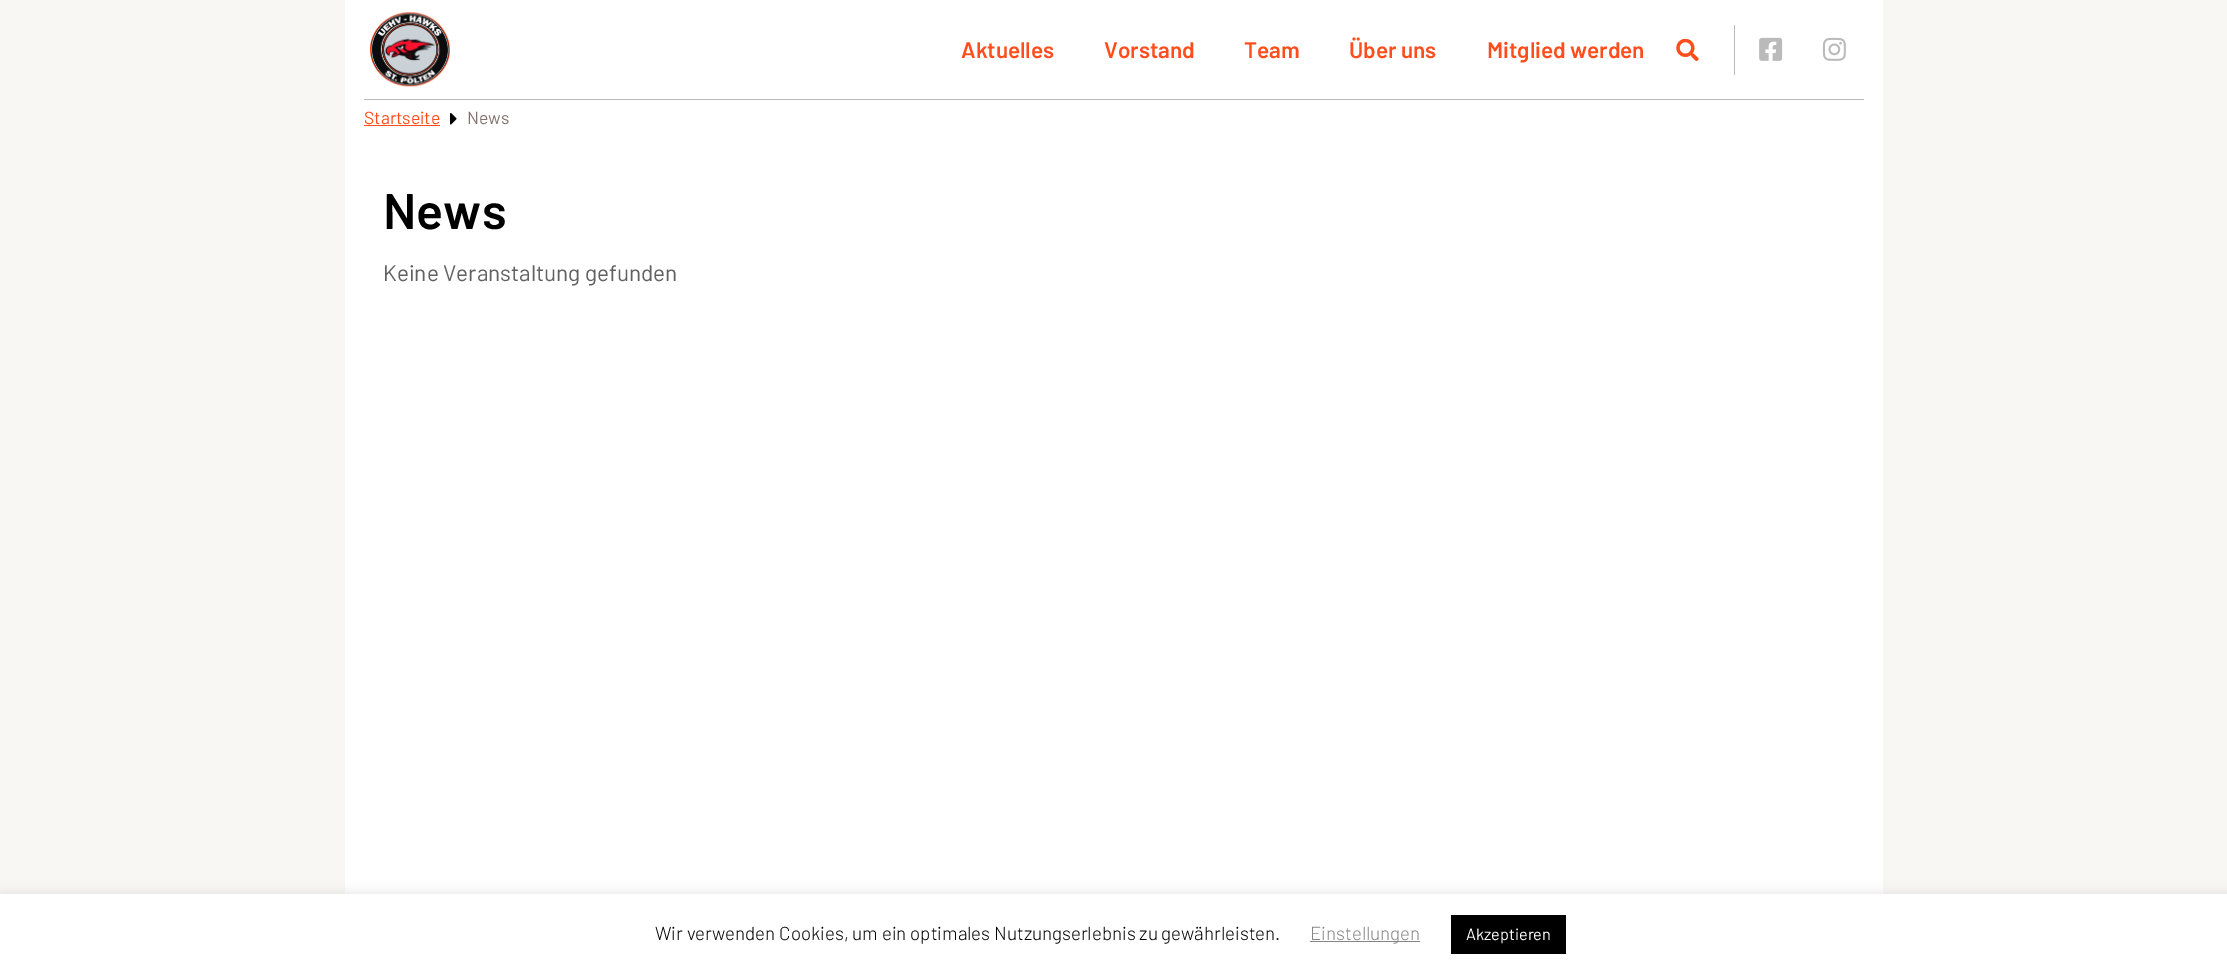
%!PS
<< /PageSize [2227 975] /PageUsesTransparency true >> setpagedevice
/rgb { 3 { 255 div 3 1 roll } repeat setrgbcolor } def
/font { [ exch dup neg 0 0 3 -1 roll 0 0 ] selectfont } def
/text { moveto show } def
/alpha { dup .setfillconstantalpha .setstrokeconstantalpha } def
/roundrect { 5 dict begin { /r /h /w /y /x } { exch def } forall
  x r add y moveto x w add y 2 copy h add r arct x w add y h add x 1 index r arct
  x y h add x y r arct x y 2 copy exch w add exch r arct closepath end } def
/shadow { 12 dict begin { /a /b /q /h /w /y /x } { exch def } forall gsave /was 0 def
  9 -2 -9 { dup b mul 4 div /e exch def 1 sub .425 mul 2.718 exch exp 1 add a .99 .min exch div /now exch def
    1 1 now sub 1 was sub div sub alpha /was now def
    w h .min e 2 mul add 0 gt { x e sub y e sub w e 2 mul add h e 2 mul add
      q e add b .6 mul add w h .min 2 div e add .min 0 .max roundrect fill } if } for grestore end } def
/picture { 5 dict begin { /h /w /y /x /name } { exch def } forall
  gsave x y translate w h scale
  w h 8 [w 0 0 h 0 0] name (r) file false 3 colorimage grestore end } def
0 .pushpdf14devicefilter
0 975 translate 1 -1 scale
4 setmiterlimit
248 247 244 rgb
0 0 2227 975 rectfill
255 255 255 rgb
345 0 1538 894 rectfill
186 186 186 rgb
364 99 1500 1 rectfill
(img_01.rgb) 370 12 80 75 picture
(img_02.rgb) 1676 39 23 22 picture
1734 25 1 50 rectfill
(img_03.rgb) 1759 37 24 24 picture
(img_04.rgb) 1822 37 24 24 picture
255 77 28 rgb
364 125 76 1 rectfill
(img_05.rgb) 450 113 7 12 picture
172 171 171 rgb
0 893 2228 81 0 6 0.3 shadow
255 255 255 rgb
0 894 2227 81 rectfill
132 132 132 rgb
1310 941 110 1 rectfill
0 0 0 rgb
1451 915 115 39 rectfill
/Barlow-SemiBold 22.5 font
255 77 28 rgb
(Aktuelles) 961 58 text
(Vorstand) 1104 58 text
(Team) 1244 58 text
(Über uns) 1349 58 text
(Mitglied werden) 1487 58 text
/Barlow-Regular 17.5 font
(Startseite) 364 124 text
131 113 109 rgb
(News) 467 124 text
/Barlow-SemiBold 50 font
0 0 0 rgb
(News) 383 229 text
/Barlow-Regular 22.5 font
98 98 98 rgb
(Keine Veranstaltung gefunden) 383 281 text
/Barlow-Light 18.75 font
0 0 0 rgb
(Wir verwenden Cookies, um ein optimales Nutzungserlebnis zu gewährleisten.) 655 940 text
132 132 132 rgb
(Einstellungen) 1310 940 text
/Barlow-Regular 16.25 font
255 255 255 rgb
(Akzeptieren) 1466 940 text
.poppdf14devicefilter showpage
